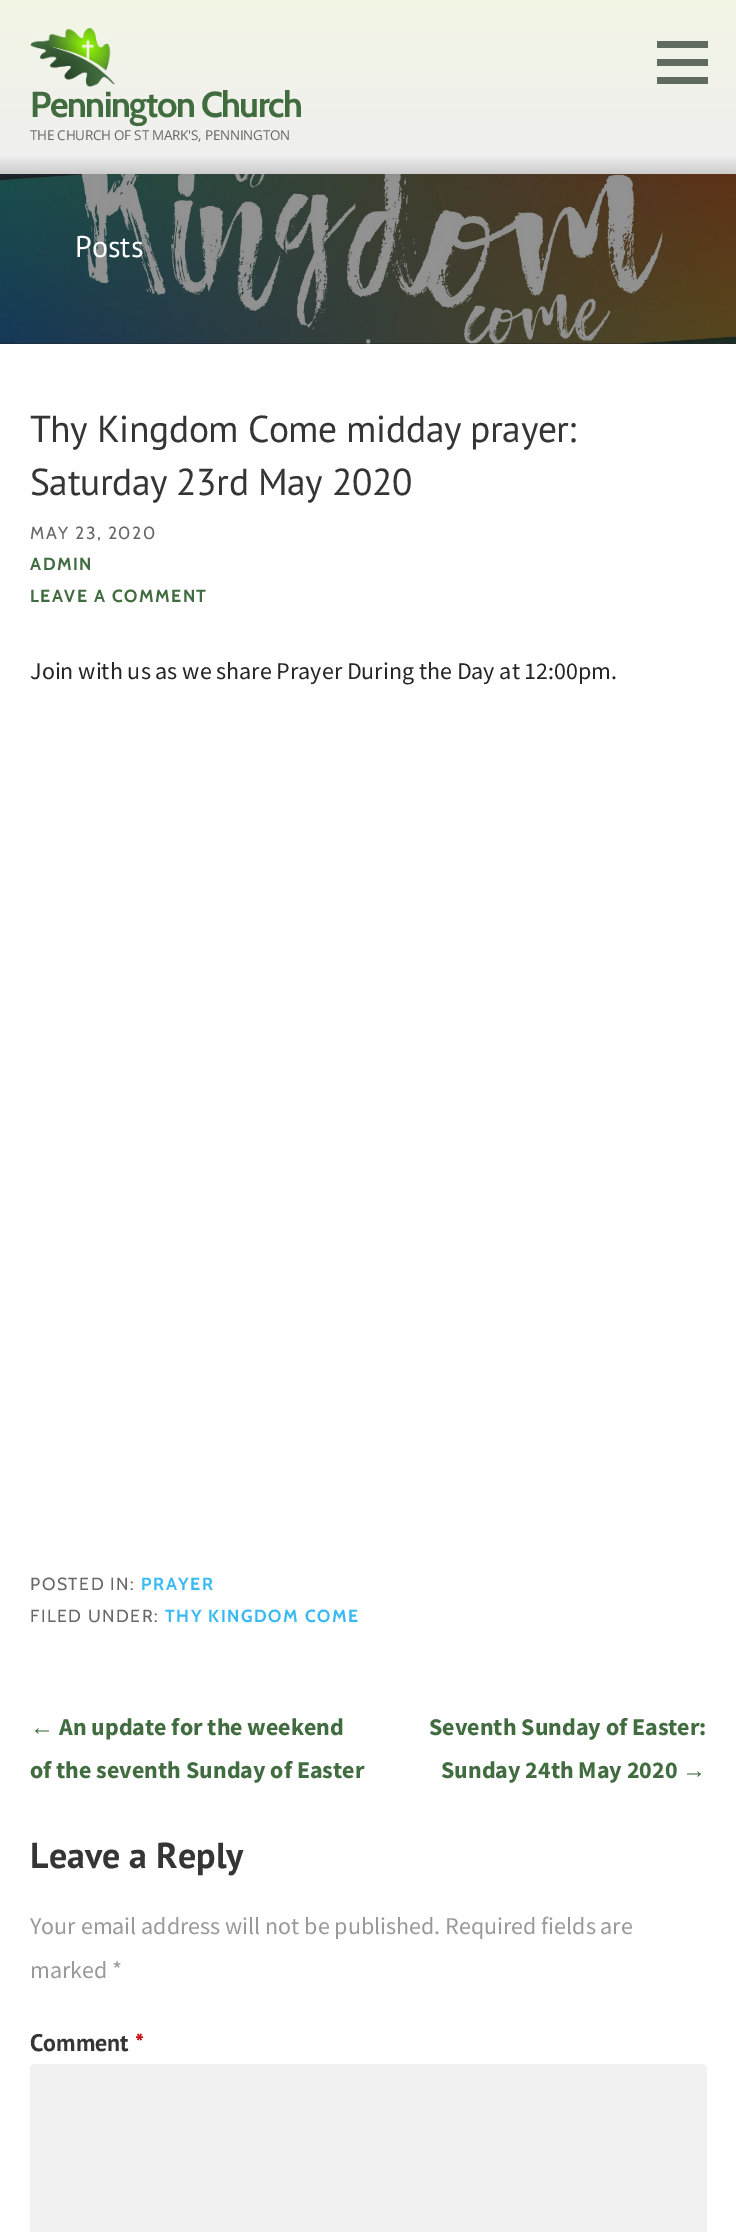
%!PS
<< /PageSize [736 2232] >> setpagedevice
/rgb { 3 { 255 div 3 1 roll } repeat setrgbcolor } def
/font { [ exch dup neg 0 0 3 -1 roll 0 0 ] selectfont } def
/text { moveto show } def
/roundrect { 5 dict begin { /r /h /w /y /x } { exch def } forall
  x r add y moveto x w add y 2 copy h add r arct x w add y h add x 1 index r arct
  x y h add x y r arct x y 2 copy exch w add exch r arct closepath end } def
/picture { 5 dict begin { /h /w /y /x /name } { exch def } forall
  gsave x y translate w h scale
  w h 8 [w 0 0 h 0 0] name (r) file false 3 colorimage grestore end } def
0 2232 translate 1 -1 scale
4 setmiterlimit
255 255 255 rgb
0 0 736 2232 rectfill
gsave 0 0 moveto 736 0 rlineto 0 174 rlineto -736 0 rlineto closepath clip newpath
<< /ShadingType 2 /ColorSpace /DeviceRGB /Coords [368 174 368 0] /Extend [true true] /Function << /FunctionType 3 /Domain [0 1] /Functions [<< /FunctionType 2 /Domain [0 1] /C0 [0.8 0.8 0.8] /C1 [0.937 0.937 0.937] /N 1 >> << /FunctionType 2 /Domain [0 1] /C0 [0.937 0.937 0.937] /C1 [0.953 0.961 0.894] /N 1 >>] /Bounds [0.11] /Encode [0 1 0 1] >> >> shfill grestore
96 107 96 rgb
657 41 51 7 rectfill
657 59 51 7 rectfill
657 77 51 7 rectfill
(img_01.rgb) 30 27 85 60 picture
37 37 37 rgb
0 343 736 1 rectfill
(img_02.rgb) 0 174 736 170 picture
241 241 241 rgb
30 2064 677 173 5 roundrect fill
/Cabin-Bold 36 font
65 108 63 rgb
30 117 moveto -1.5 0 (Pennington Church) ashow
/OpenSans-Regular 13.5 font
104 104 104 rgb
30 140 moveto -0.25 0 (THE CHURCH OF ST MARK'S, PENNINGTON) ashow
/PTSans-Regular 30 font
255 255 255 rgb
(Posts) 75 257 text
/PTSans-Regular 37.5 font
53 53 53 rgb
30 442 moveto -0.45 0 (Thy Kingdom Come midday prayer:) ashow
30 495 moveto -0.45 0 (Saturday 23rd May 2020) ashow
/Cabin-Regular 17.6 font
104 104 104 rgb
30 539 moveto 1.5 0 (MAY 23, 2020) ashow
/Cabin-Bold 17.6 font
65 108 63 rgb
30 570 moveto 1.5 0 (ADMIN) ashow
30 602 moveto 1.5 0 (LEAVE A COMMENT) ashow
/SourceSansPro-Regular 24 font
37 37 37 rgb
(Join with us as we share Prayer During the Day at 12:00pm.) 30 679 text
/Cabin-Regular 17.6 font
104 104 104 rgb
30 1590 moveto 1.5 0 (POSTED IN:) ashow
/Cabin-Bold 17.6 font
57 186 243 rgb
141 1590 moveto 1.5 0 (PRAYER) ashow
/Cabin-Regular 17.6 font
104 104 104 rgb
30 1622 moveto 1.5 0 (FILED UNDER:) ashow
/Cabin-Bold 17.6 font
57 186 243 rgb
165 1622 moveto 1.5 0 (THY KINGDOM COME) ashow
/LiberationSans-Bold 24 font
65 108 63 rgb
(←) 30 1735 text
/SourceSansPro-Bold 24 font
(An update for the weekend) 59 1735 text
(of the seventh Sunday of Easter) 30 1778 text
(Seventh Sunday of Easter:) 429 1735 text
(Sunday 24th May 2020) 441 1778 text
/LiberationSans-Bold 24 font
(→) 682 1778 text
/PTSans-Bold 36 font
53 53 53 rgb
(Leave a Reply) 30 1868 text
/SourceSansPro-Regular 24 font
153 153 153 rgb
(Your email address will not be published. Required fields are) 30 1934 text
(marked *) 30 1978 text
/PTSans-Bold 24 font
53 53 53 rgb
(Comment) 30 2051 text
204 0 0 rgb
(*) 135 2051 text
showpage
